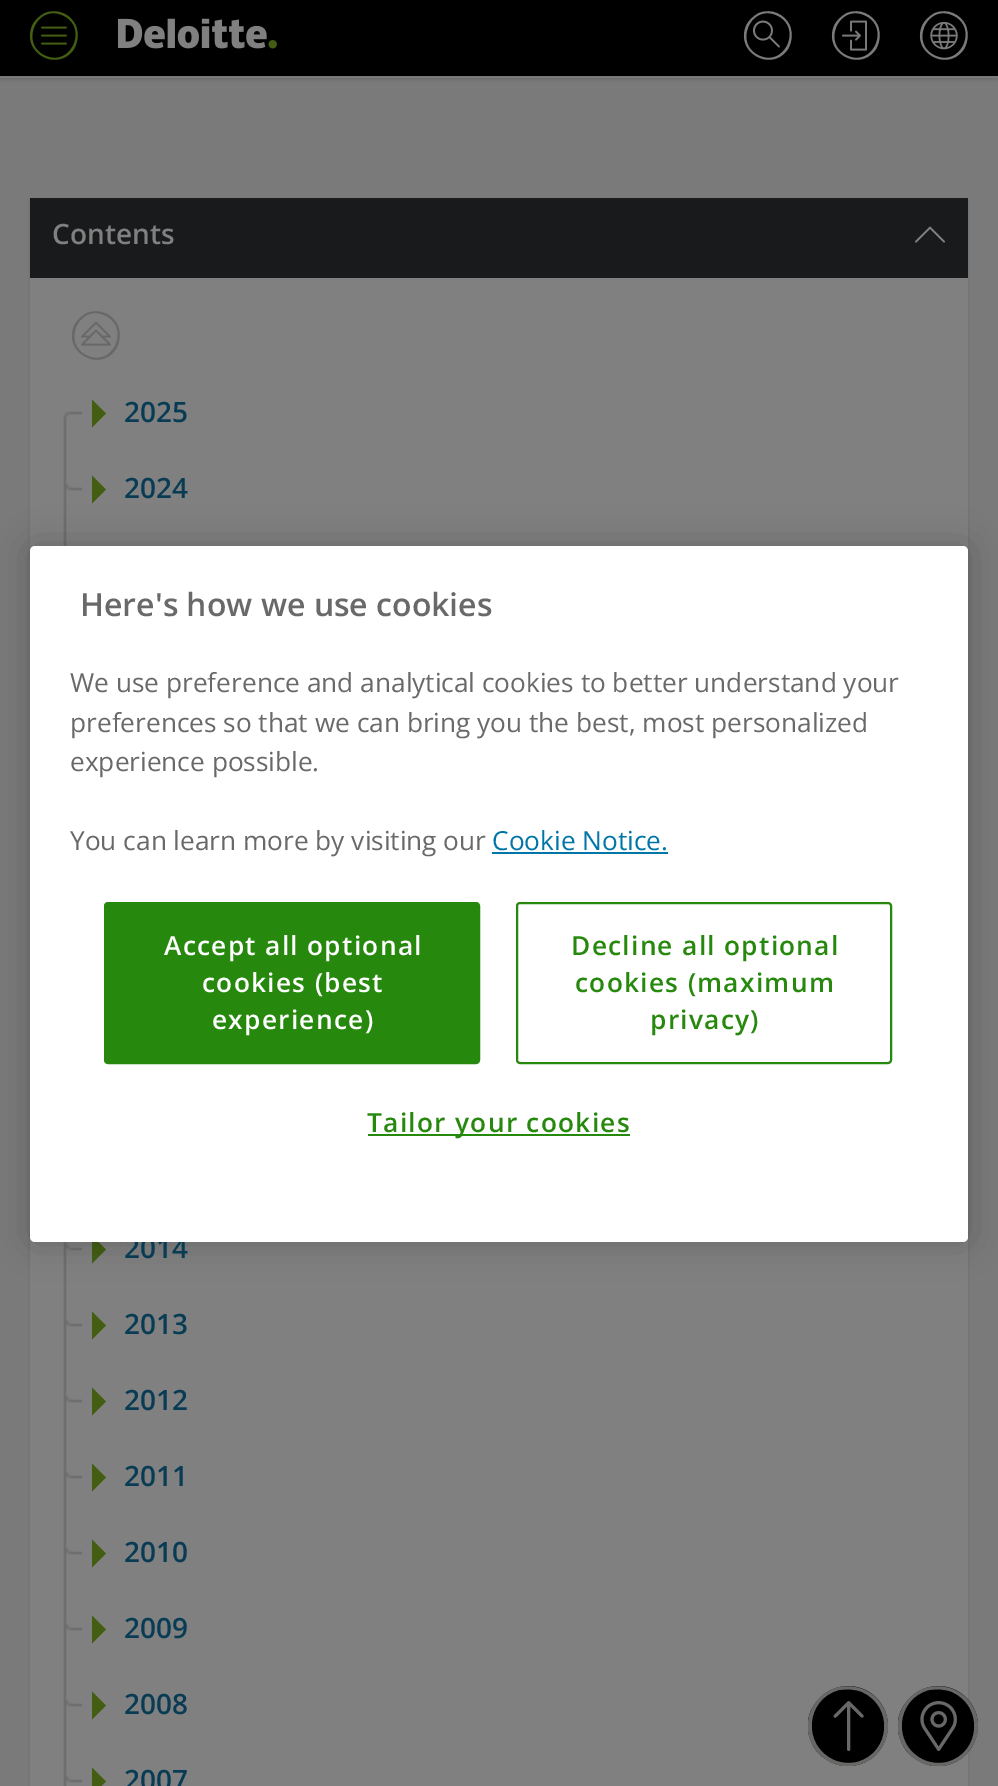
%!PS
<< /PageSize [998 1786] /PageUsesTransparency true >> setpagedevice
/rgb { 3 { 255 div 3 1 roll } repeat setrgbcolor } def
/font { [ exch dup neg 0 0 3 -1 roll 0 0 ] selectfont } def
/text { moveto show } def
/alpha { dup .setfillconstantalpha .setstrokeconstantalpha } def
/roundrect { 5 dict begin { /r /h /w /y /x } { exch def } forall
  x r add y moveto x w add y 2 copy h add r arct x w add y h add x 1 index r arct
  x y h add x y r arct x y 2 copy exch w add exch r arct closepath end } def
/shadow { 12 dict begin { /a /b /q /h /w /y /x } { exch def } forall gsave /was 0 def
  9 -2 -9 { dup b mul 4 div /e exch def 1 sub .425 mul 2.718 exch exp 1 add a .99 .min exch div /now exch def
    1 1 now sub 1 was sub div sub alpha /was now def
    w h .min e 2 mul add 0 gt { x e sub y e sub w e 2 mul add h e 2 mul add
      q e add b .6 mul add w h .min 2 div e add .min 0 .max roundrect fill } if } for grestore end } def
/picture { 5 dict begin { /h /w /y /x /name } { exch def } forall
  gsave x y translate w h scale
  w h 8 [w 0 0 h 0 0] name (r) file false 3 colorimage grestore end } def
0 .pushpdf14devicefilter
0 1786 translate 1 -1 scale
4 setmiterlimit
122 122 122 rgb
0 0 998 1786 rectfill
0 0 0 rgb
0 -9 998 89 0 3 0.1 shadow
128 128 128 rgb
0 76 998 2 rectfill
0 0 0 rgb
0 2 998 76 0 3 0.1 shadow
0 0 998 76 rectfill
67 94 19 rgb
45 13 moveto 12 -5 26 1 31 13 rcurveto 3 8 2 16 -2 23 rcurveto -16 24 -53 4 -42 -23 rcurveto 2 -5 7 -10 13 -13 rcurveto closepath 62 15 moveto -26 -11 -43 30 -16 41 rcurveto 26 11 43 -30 16 -41 rcurveto closepath fill
(img_01.rgb) 41 26 26 19 picture
(img_02.rgb) 118 18 149 31 picture
(img_03.rgb) 268 40 9 9 picture
122 122 122 rgb
759 13 moveto 12 -5 26 1 31 13 rcurveto 3 8 2 16 -2 23 rcurveto -16 24 -53 4 -42 -23 rcurveto 2 -5 7 -10 13 -13 rcurveto closepath 776 15 moveto -26 -11 -43 30 -16 41 rcurveto 26 11 43 -30 16 -41 rcurveto closepath fill
(img_04.rgb) 752 20 28 28 picture
847 13 moveto 12 -5 26 1 31 13 rcurveto 3 8 2 16 -2 23 rcurveto -16 24 -53 4 -42 -23 rcurveto 2 -5 7 -10 13 -13 rcurveto closepath 864 15 moveto -26 -11 -43 30 -16 41 rcurveto 26 11 43 -30 16 -41 rcurveto closepath fill
(img_05.rgb) 842 20 25 31 picture
935 13 moveto 12 -5 26 1 31 13 rcurveto 3 8 2 16 -2 23 rcurveto -16 24 -53 4 -42 -23 rcurveto 2 -5 7 -10 13 -13 rcurveto closepath 952 15 moveto -26 -11 -43 30 -16 41 rcurveto 26 11 43 -30 16 -41 rcurveto closepath fill
(img_06.rgb) 930 21 28 29 picture
0 0 0 rgb
30 200 938 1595 0 3 0.1 shadow
128 128 128 rgb
30 278 938 1508 rectfill
25 26 27 rgb
30 198 938 80 rectfill
(img_07.rgb) 915 226 30 17 picture
104 104 103 rgb
87 313 moveto 12 -5 26 1 31 13 rcurveto 3 8 2 16 -2 23 rcurveto -16 24 -53 4 -42 -23 rcurveto 2 -5 7 -10 13 -13 rcurveto closepath 104 315 moveto -26 -11 -43 30 -16 41 rcurveto 26 11 43 -30 16 -41 rcurveto closepath fill
(img_08.rgb) 81 321 30 25 picture
(img_09.rgb) 63 411 19 43 picture
67 94 19 rgb
92 427.5 moveto 0 -28 rlineto 14 14 rlineto closepath fill
(img_10.rgb) 63 454 19 76 picture
92 503.5 moveto 0 -28 rlineto 14 14 rlineto closepath fill
(img_11.rgb) 63 530 4 16 picture
(img_12.rgb) 63 1242 19 48 picture
92 1263.5 moveto 0 -28 rlineto 14 14 rlineto closepath fill
(img_10.rgb) 63 1290 19 76 picture
92 1339.5 moveto 0 -28 rlineto 14 14 rlineto closepath fill
(img_10.rgb) 63 1366 19 76 picture
92 1415.5 moveto 0 -28 rlineto 14 14 rlineto closepath fill
(img_10.rgb) 63 1442 19 76 picture
92 1491.5 moveto 0 -28 rlineto 14 14 rlineto closepath fill
(img_10.rgb) 63 1518 19 76 picture
92 1567.5 moveto 0 -28 rlineto 14 14 rlineto closepath fill
(img_10.rgb) 63 1594 19 76 picture
92 1643.5 moveto 0 -28 rlineto 14 14 rlineto closepath fill
(img_10.rgb) 63 1670 19 76 picture
92 1719.5 moveto 0 -28 rlineto 14 14 rlineto closepath fill
(img_13.rgb) 63 1746 19 40 picture
92 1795.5 moveto 0 -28 rlineto 14 14 rlineto closepath fill
0 0 0 rgb
30 546 938 696 5 18 0.2 shadow
gsave
808 1686 80 80 rectclip
885 1711 moveto 8 20 -2 44 -22 52 rcurveto -12 5 -26 4 -37 -4 rcurveto -7 -4 -12 -10 -15 -18 rcurveto -14 -32 20 -65 52 -52 rcurveto 10 4 18 12 22 22 rcurveto closepath fill
104 104 103 rgb
833 1689 moveto 20 -8 44 2 52 22 rcurveto 5 12 4 26 -4 37 rcurveto -4 7 -10 12 -18 15 rcurveto -32 14 -66 -20 -52 -52 rcurveto 4 -10 12 -18 22 -22 rcurveto closepath 862 1692 moveto -7 -3 -15 -3 -23 -2 rcurveto -34 9 -37 56 -5 70 rcurveto 7 3 15 4 23 2 rcurveto 34 -9 37 -56 5 -70 rcurveto closepath fill
grestore
(img_14.rgb) 833 1701 31 50 picture
gsave
898 1686 80 80 rectclip
975 1711 moveto 8 20 -2 44 -22 52 rcurveto -12 5 -26 4 -37 -4 rcurveto -7 -4 -12 -10 -15 -18 rcurveto -14 -32 20 -65 52 -52 rcurveto 10 4 18 12 22 22 rcurveto closepath fill
104 104 103 rgb
923 1689 moveto 20 -8 44 2 52 22 rcurveto 5 12 4 26 -4 37 rcurveto -4 7 -10 12 -18 15 rcurveto -32 14 -66 -20 -52 -52 rcurveto 4 -10 12 -18 22 -22 rcurveto closepath 952 1692 moveto -7 -3 -15 -3 -23 -2 rcurveto -34 9 -37 56 -5 70 rcurveto 7 3 15 4 23 2 rcurveto 34 -9 37 -56 5 -70 rcurveto closepath fill
grestore
(img_15.rgb) 920 1701 37 50 picture
/OpenSans-SemiBold 28 font
128 128 128 rgb
(Contents) 52 244 text
8 59 84 rgb
(2025) 124 422 text
(2024) 124 498 text
(2014) 124 1258 text
(2013) 124 1334 text
(2012) 124 1410 text
(2011) 124 1486 text
(2010) 124 1562 text
(2009) 124 1638 text
(2008) 124 1714 text
(2007) 124 1790 text
255 255 255 rgb
30 546 938 696 5 roundrect fill
/OpenSans-SemiBold 32 font
105 105 105 rgb
(Here's how we use cookies) 80 616 text
/OpenSans-Regular 26.25 font
(We use preference and analytical cookies to better understand your) 70 692 text
(preferences so that we can bring you the best, most personalized) 70 732 text
(experience possible.) 70 771 text
(You can learn more by visiting our) 70 850 text
0 118 168 rgb
(Cookie Notice.) 492 850 text
492 852 176 2 rectfill
38 137 13 rgb
105 903 374 160 3 roundrect gsave fill grestore
2 setlinewidth
stroke
/OpenSans-SemiBold 26.25 font
255 255 255 rgb
164 955 moveto 1.3 0 (Accept all optional) ashow
202 992 moveto 1.3 0 (cookies \(best) ashow
212 1029 moveto 1.3 0 (experience\)) ashow
38 137 13 rgb
517 903 374 160 3 roundrect stroke
571 955 moveto 1.3 0 (Decline all optional) ashow
575 992 moveto 1.3 0 (cookies \(maximum) ashow
650 1029 moveto 1.3 0 (privacy\)) ashow
368 1134 262 2 rectfill
367 1132 moveto 1.3 0 (Tailor your cookies) ashow
.poppdf14devicefilter showpage
